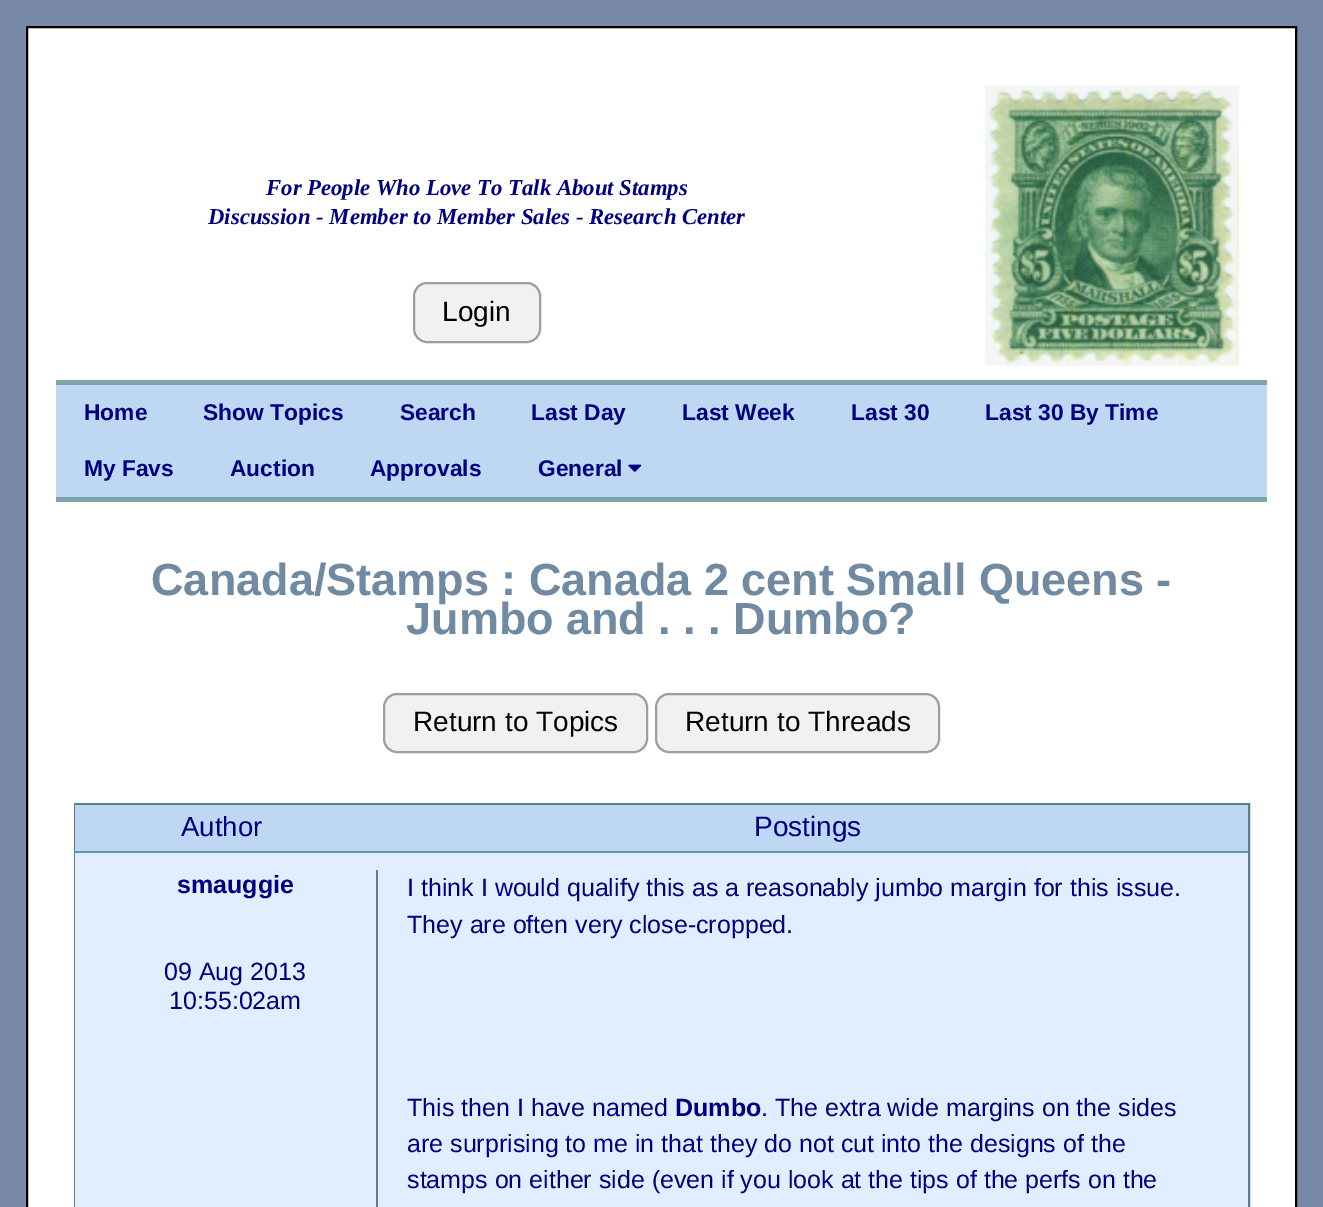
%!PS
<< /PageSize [1323 1207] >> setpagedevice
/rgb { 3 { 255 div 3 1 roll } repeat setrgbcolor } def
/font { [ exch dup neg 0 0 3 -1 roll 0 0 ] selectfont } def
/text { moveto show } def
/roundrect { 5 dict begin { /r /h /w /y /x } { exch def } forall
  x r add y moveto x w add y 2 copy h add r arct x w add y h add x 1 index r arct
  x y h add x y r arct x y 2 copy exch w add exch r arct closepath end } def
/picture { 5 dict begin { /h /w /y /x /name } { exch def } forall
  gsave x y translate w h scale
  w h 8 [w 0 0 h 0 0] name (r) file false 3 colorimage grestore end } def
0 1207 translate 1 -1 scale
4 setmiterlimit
119 137 166 rgb
0 0 1323 1207 rectfill
255 255 255 rgb
27 27 moveto 1269 0 rlineto 0 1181 rlineto -1269 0 rlineto closepath gsave fill grestore
0 0 0 rgb
2 setlinewidth
stroke
241 241 241 rgb
414 283 126 59 13 roundrect gsave fill grestore
158 158 158 rgb
stroke
(img_01.rgb) 985 85 254 281 picture
190 216 243 rgb
56 385 1211 112 rectfill
125 165 168 rgb
56 380 1211 5 rectfill
56 497 1211 5 rectfill
(img_02.rgb) 628 464 14 8 picture
241 241 241 rgb
384 694 263 58 13 roundrect gsave fill grestore
158 158 158 rgb
stroke
241 241 241 rgb
656 694 283 58 13 roundrect gsave fill grestore
158 158 158 rgb
stroke
96 125 139 rgb
75 804 1174 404 rectstroke
190 216 243 rgb
75 805 1173 46 rectfill
99 148 189 rgb
75 851 1173 2 rectfill
226 237 255 rgb
75 853 1173 354 rectfill
96 125 139 rgb
376 870 2 337 rectfill
/LiberationSerif-BoldItalic 22.75 font
0 0 128 rgb
(For People Who Love To Talk About Stamps) 266 195 text
(Discussion - Member to Member Sales - Research Center) 208 224 text
/LiberationSans-Regular 28 font
0 0 0 rgb
(Login) 442 321 text
/LiberationSans-Bold 22.75 font
0 0 128 rgb
(Home) 84 420 text
(Show Topics) 203 420 text
(Search) 400 420 text
(Last Day) 531 420 text
(Last Week) 682 420 text
(Last 30) 851 420 text
(Last 30 By Time) 985 420 text
(My Favs) 84 476 text
(Auction) 230 476 text
(Approvals) 370 476 text
(General) 538 476 text
/LiberationSans-Bold 45 font
112 138 162 rgb
(Canada/Stamps : Canada 2 cent Small Queens -) 151 595 text
(Jumbo and . . . Dumbo?) 406 634 text
/LiberationSans-Regular 28 font
0 0 0 rgb
(Return to Topics) 413 731 text
(Return to Threads) 685 731 text
/LiberationSans-Regular 27.5 font
0 0 128 rgb
(Author) 181 836 text
/LiberationSans-Regular 28 font
(Postings) 754 836 text
/LiberationSans-Bold 25 font
(smauggie) 177 893 text
/LiberationSans-Regular 25 font
(09 Aug 2013) 164 980 text
(10:55:02am) 169 1009 text
(I think I would qualify this as a reasonably jumbo margin for this issue.) 407 896 text
(They are often very close-cropped.) 407 933 text
(This then I have named) 407 1116 text
/LiberationSans-Bold 25 font
(Dumbo) 675 1116 text
/LiberationSans-Regular 25 font
(. The extra wide margins on the sides) 761 1116 text
(are surprising to me in that they do not cut into the designs of the) 407 1152 text
(stamps on either side \(even if you look at the tips of the perfs on the) 407 1188 text
showpage
